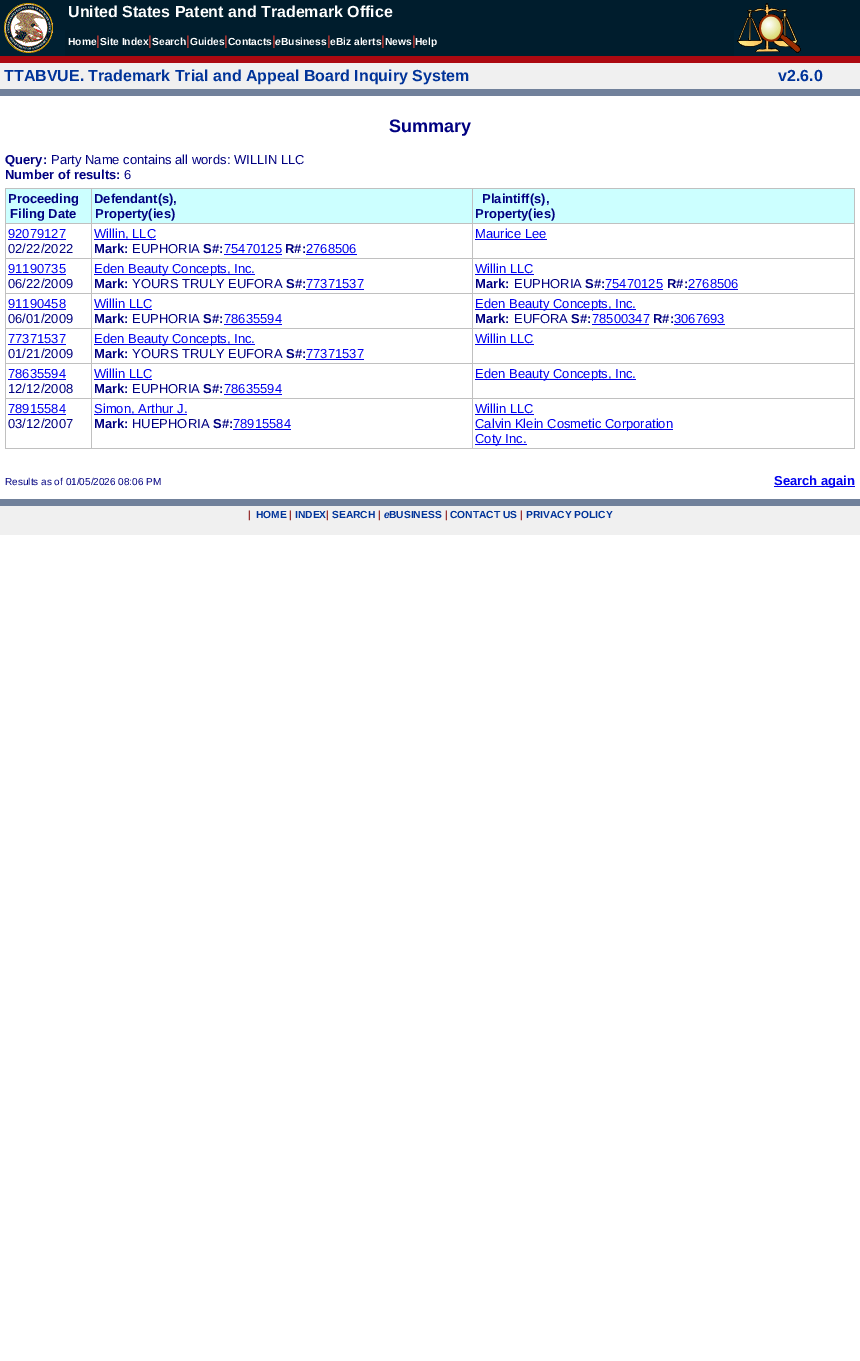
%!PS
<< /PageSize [860 1361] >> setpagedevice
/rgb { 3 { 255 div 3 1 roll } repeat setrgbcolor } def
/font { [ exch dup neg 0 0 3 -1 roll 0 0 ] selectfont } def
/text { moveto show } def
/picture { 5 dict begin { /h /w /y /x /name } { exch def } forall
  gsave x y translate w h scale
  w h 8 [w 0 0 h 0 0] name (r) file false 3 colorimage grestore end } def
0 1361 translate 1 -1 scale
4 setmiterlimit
255 255 255 rgb
0 0 860 1361 rectfill
0 29 45 rgb
0 0 860 30 rectfill
0 32 50 rgb
0 30 860 26 rectfill
(img_01.rgb) 4 3 49 50 picture
(img_02.rgb) 737 3 64 50 picture
0 29 45 rgb
65 30 669 26 rectfill
172 9 17 rgb
0 56 860 7 rectfill
240 240 240 rgb
0 63 860 26 rectfill
113 129 155 rgb
0 89 860 7 rectfill
192 192 192 rgb
5 188 850 261 rectfill
204 255 255 rgb
6 189 85 34 rectfill
92 189 380 34 rectfill
473 189 381 34 rectfill
255 255 255 rgb
6 224 85 34 rectfill
0 0 238 rgb
8 239 58 1 rectfill
255 255 255 rgb
92 224 380 34 rectfill
0 0 238 rgb
94 239 62 1 rectfill
224 254 58 1 rectfill
306 254 51 1 rectfill
255 255 255 rgb
473 224 381 34 rectfill
0 0 238 rgb
475 239 72 1 rectfill
255 255 255 rgb
6 259 85 34 rectfill
0 0 238 rgb
8 274 58 1 rectfill
255 255 255 rgb
92 259 380 34 rectfill
0 0 238 rgb
94 274 161 1 rectfill
306 289 58 1 rectfill
255 255 255 rgb
473 259 381 34 rectfill
0 0 238 rgb
475 274 59 1 rectfill
605 289 58 1 rectfill
688 289 50 1 rectfill
255 255 255 rgb
6 294 85 34 rectfill
0 0 238 rgb
8 309 58 1 rectfill
255 255 255 rgb
92 294 380 34 rectfill
0 0 238 rgb
94 309 58 1 rectfill
224 324 58 1 rectfill
255 255 255 rgb
473 294 381 34 rectfill
0 0 238 rgb
475 309 161 1 rectfill
592 324 57 1 rectfill
674 324 51 1 rectfill
255 255 255 rgb
6 329 85 34 rectfill
0 0 238 rgb
8 344 58 1 rectfill
255 255 255 rgb
92 329 380 34 rectfill
0 0 238 rgb
94 344 161 1 rectfill
306 359 58 1 rectfill
255 255 255 rgb
473 329 381 34 rectfill
0 0 238 rgb
475 344 59 1 rectfill
255 255 255 rgb
6 364 85 34 rectfill
0 0 238 rgb
8 379 58 1 rectfill
255 255 255 rgb
92 364 380 34 rectfill
0 0 238 rgb
94 379 58 1 rectfill
224 394 58 1 rectfill
255 255 255 rgb
473 364 381 34 rectfill
0 0 238 rgb
475 379 161 1 rectfill
255 255 255 rgb
6 399 85 49 rectfill
0 0 238 rgb
8 414 58 1 rectfill
255 255 255 rgb
92 399 380 49 rectfill
0 0 238 rgb
94 414 93 1 rectfill
233 429 58 1 rectfill
255 255 255 rgb
473 399 381 49 rectfill
0 0 238 rgb
475 414 59 1 rectfill
475 429 198 1 rectfill
475 444 52 1 rectfill
774 486 81 1 rectfill
113 129 155 rgb
0 499 860 7 rectfill
240 240 240 rgb
0 506 860 29 rectfill
/LiberationSans-Bold 16 font
255 255 255 rgb
(United States Patent and Trademark Office) 68 17 text
/LiberationSans-Bold 10.25 font
(Home) 68 45 text
/LiberationSans-Bold 13 font
153 51 51 rgb
(|) 96 45 text
/LiberationSans-Bold 10.25 font
255 255 255 rgb
(Site Index) 100 45 text
/LiberationSans-Bold 13 font
153 51 51 rgb
(|) 148 45 text
/LiberationSans-Bold 10.25 font
255 255 255 rgb
(Search) 152 45 text
/LiberationSans-Bold 13 font
153 51 51 rgb
(|) 186 45 text
/LiberationSans-Bold 10.25 font
255 255 255 rgb
(Guides) 190 45 text
/LiberationSans-Bold 13 font
153 51 51 rgb
(|) 224 45 text
/LiberationSans-Bold 10.25 font
255 255 255 rgb
(Contacts) 228 45 text
/LiberationSans-Bold 13 font
153 51 51 rgb
(|) 272 45 text
/LiberationSans-BoldItalic 10.25 font
255 255 255 rgb
(e) 275 45 text
/LiberationSans-Bold 10.25 font
(Business) 281 45 text
/LiberationSans-Bold 13 font
153 51 51 rgb
(|) 327 45 text
/LiberationSans-Bold 10.25 font
255 255 255 rgb
(eBiz alerts) 330 45 text
/LiberationSans-Bold 13 font
153 51 51 rgb
(|) 381 45 text
/LiberationSans-Bold 10.25 font
255 255 255 rgb
(News) 385 45 text
/LiberationSans-Bold 13 font
153 51 51 rgb
(|) 412 45 text
/LiberationSans-Bold 10.25 font
255 255 255 rgb
(Help) 415 45 text
/LiberationSans-Bold 16 font
0 51 153 rgb
(TTABVUE. Trademark Trial and Appeal Board Inquiry System) 4 81 text
(v2.6.0) 778 81 text
/LiberationSans-Bold 18 font
0 0 128 rgb
(Summary) 389 132 text
/LiberationSans-Bold 13 font
(Query:) 5 164 text
/LiberationSans-Regular 13 font
(Party Name contains all words: WILLIN LLC) 51 164 text
/LiberationSans-Bold 13 font
(Number of results:) 5 179 text
/LiberationSans-Regular 13 font
(6) 124 179 text
/LiberationSans-Bold 13 font
(Proceeding) 8 203 text
(Filing Date) 10 218 text
(Defendant\(s\),) 94 203 text
(Property\(ies\)) 95 218 text
(Plaintiff\(s\),) 482 203 text
(Property\(ies\)) 475 218 text
/LiberationSans-Regular 13 font
0 0 238 rgb
(92079127) 8 238 text
0 0 128 rgb
(02/22/2022) 8 253 text
0 0 238 rgb
(Willin, LLC) 94 238 text
/LiberationSans-Bold 13 font
0 0 128 rgb
(Mark:) 94 253 text
/LiberationSans-Regular 13 font
(EUPHORIA) 132 253 text
/LiberationSans-Bold 13 font
(S#:) 203 253 text
/LiberationSans-Regular 13 font
0 0 238 rgb
(75470125) 224 253 text
/LiberationSans-Bold 13 font
0 0 128 rgb
(R#:) 285 253 text
/LiberationSans-Regular 13 font
0 0 238 rgb
(2768506) 306 253 text
(Maurice Lee) 475 238 text
(91190735) 8 273 text
0 0 128 rgb
(06/22/2009) 8 288 text
0 0 238 rgb
(Eden Beauty Concepts, Inc.) 94 273 text
/LiberationSans-Bold 13 font
0 0 128 rgb
(Mark:) 94 288 text
/LiberationSans-Regular 13 font
(YOURS TRULY EUFORA) 132 288 text
/LiberationSans-Bold 13 font
(S#:) 286 288 text
/LiberationSans-Regular 13 font
0 0 238 rgb
(77371537) 306 288 text
(Willin LLC) 475 273 text
/LiberationSans-Bold 13 font
0 0 128 rgb
(Mark:) 475 288 text
/LiberationSans-Regular 13 font
(EUPHORIA) 514 288 text
/LiberationSans-Bold 13 font
(S#:) 585 288 text
/LiberationSans-Regular 13 font
0 0 238 rgb
(75470125) 605 288 text
/LiberationSans-Bold 13 font
0 0 128 rgb
(R#:) 667 288 text
/LiberationSans-Regular 13 font
0 0 238 rgb
(2768506) 688 288 text
(91190458) 8 308 text
0 0 128 rgb
(06/01/2009) 8 323 text
0 0 238 rgb
(Willin LLC) 94 308 text
/LiberationSans-Bold 13 font
0 0 128 rgb
(Mark:) 94 323 text
/LiberationSans-Regular 13 font
(EUPHORIA) 132 323 text
/LiberationSans-Bold 13 font
(S#:) 203 323 text
/LiberationSans-Regular 13 font
0 0 238 rgb
(78635594) 224 323 text
(Eden Beauty Concepts, Inc.) 475 308 text
/LiberationSans-Bold 13 font
0 0 128 rgb
(Mark:) 475 323 text
/LiberationSans-Regular 13 font
(EUFORA) 514 323 text
/LiberationSans-Bold 13 font
(S#:) 571 323 text
/LiberationSans-Regular 13 font
0 0 238 rgb
(78500347) 592 323 text
/LiberationSans-Bold 13 font
0 0 128 rgb
(R#:) 653 323 text
/LiberationSans-Regular 13 font
0 0 238 rgb
(3067693) 674 323 text
(77371537) 8 343 text
0 0 128 rgb
(01/21/2009) 8 358 text
0 0 238 rgb
(Eden Beauty Concepts, Inc.) 94 343 text
/LiberationSans-Bold 13 font
0 0 128 rgb
(Mark:) 94 358 text
/LiberationSans-Regular 13 font
(YOURS TRULY EUFORA) 132 358 text
/LiberationSans-Bold 13 font
(S#:) 286 358 text
/LiberationSans-Regular 13 font
0 0 238 rgb
(77371537) 306 358 text
(Willin LLC) 475 343 text
(78635594) 8 378 text
0 0 128 rgb
(12/12/2008) 8 393 text
0 0 238 rgb
(Willin LLC) 94 378 text
/LiberationSans-Bold 13 font
0 0 128 rgb
(Mark:) 94 393 text
/LiberationSans-Regular 13 font
(EUPHORIA) 132 393 text
/LiberationSans-Bold 13 font
(S#:) 203 393 text
/LiberationSans-Regular 13 font
0 0 238 rgb
(78635594) 224 393 text
(Eden Beauty Concepts, Inc.) 475 378 text
(78915584) 8 413 text
0 0 128 rgb
(03/12/2007) 8 428 text
0 0 238 rgb
(Simon, Arthur J.) 94 413 text
/LiberationSans-Bold 13 font
0 0 128 rgb
(Mark:) 94 428 text
/LiberationSans-Regular 13 font
(HUEPHORIA) 132 428 text
/LiberationSans-Bold 13 font
(S#:) 213 428 text
/LiberationSans-Regular 13 font
0 0 238 rgb
(78915584) 233 428 text
(Willin LLC) 475 413 text
(Calvin Klein Cosmetic Corporation) 475 428 text
(Coty Inc.) 475 443 text
/LiberationSans-Regular 10 font
0 0 128 rgb
(Results as of 01/05/2026 08:06 PM) 5 485 text
/LiberationSans-Bold 13 font
0 0 238 rgb
(Search again) 774 485 text
/LiberationSans-Bold 10.25 font
153 51 51 rgb
(|) 248 518 text
0 51 153 rgb
(HOME) 256 518 text
153 51 51 rgb
(|) 289 518 text
0 51 153 rgb
(INDEX) 295 518 text
153 51 51 rgb
(|) 326 518 text
0 51 153 rgb
(SEARCH) 332 518 text
153 51 51 rgb
(|) 378 518 text
/LiberationSans-BoldItalic 10.25 font
0 51 153 rgb
(e) 384 518 text
/LiberationSans-Bold 10.25 font
(BUSINESS) 389 518 text
153 51 51 rgb
(|) 445 518 text
0 51 153 rgb
(CONTACT US) 450 518 text
153 51 51 rgb
(|) 520 518 text
0 51 153 rgb
(PRIVACY POLICY) 526 518 text
showpage
